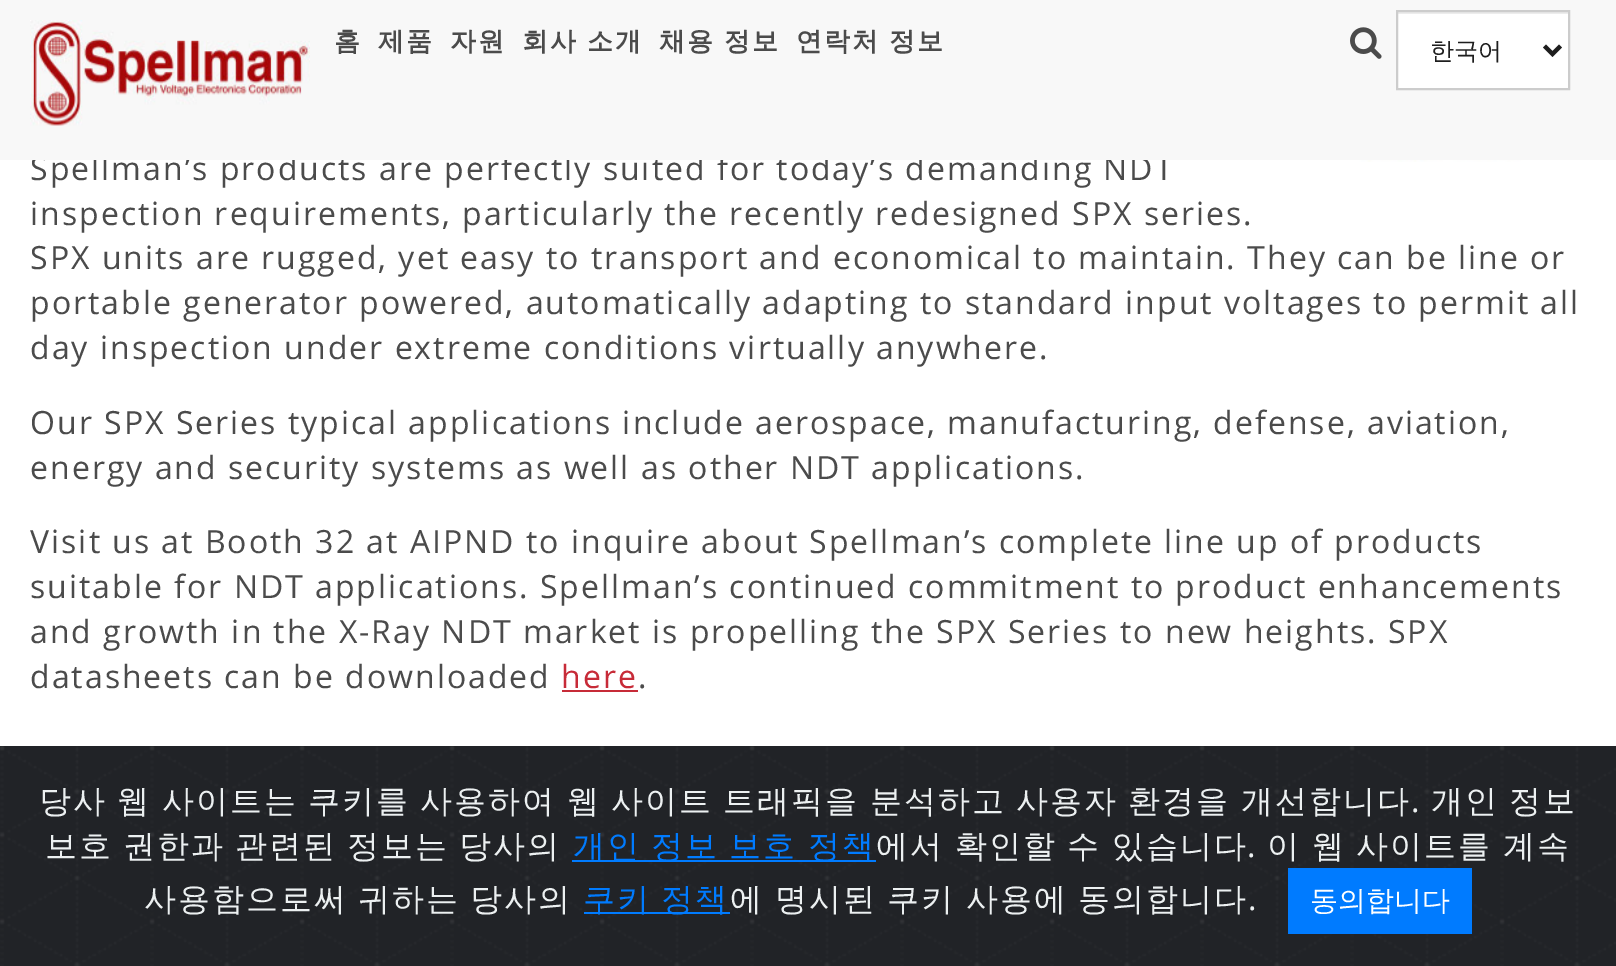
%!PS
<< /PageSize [1616 966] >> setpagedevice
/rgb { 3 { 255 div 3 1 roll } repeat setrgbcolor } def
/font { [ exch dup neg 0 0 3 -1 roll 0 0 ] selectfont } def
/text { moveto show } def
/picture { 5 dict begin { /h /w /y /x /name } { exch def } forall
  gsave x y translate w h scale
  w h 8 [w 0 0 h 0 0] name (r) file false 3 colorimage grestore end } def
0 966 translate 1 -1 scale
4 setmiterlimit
255 255 255 rgb
0 0 1616 966 rectfill
(img_03.rgb) 1312 160 260 2 picture
199 43 56 rgb
562 690 76 2 rectfill
(img_04.rgb) 0 746 1616 220 picture
0 123 255 rgb
572 860 304 2 rectfill
584 912 146 2 rectfill
1288 868 184 66 rectfill
/OpenSans-Regular 32 font
75 75 75 rgb
30 180 moveto 2 0 (Spellman’s products are perfectly suited for today’s demanding NDT) ashow
248 248 248 rgb
0 0 1616 160 rectfill
(img_02.rgb) 1350 27 32 32 picture
/WenQuanYiZenHei-Bold 26 font
75 75 75 rgb
796 50 moveto -1 0 32 2 0 (연락처 정보) awidthshow
659 50 moveto -1 0 32 2 0 (채용 정보) awidthshow
522 50 moveto -1 0 32 2 0 (회사 소개) awidthshow
450 50 moveto 2 0 (자원) ashow
378 50 moveto 2 0 (제품) ashow
334 50 moveto 2 0 (홈) ashow
(img_01.rgb) 30 20 280 106 picture
236 236 236 rgb
1398 12 170 2 rectfill
255 255 255 rgb
1398 14 170 74 rectfill
204 204 204 rgb
2 setlinewidth
1397 11 172 78 rectstroke
/WenQuanYiZenHei-Medium 24 font
30 30 30 rgb
(한국어) 1430 59 text
4 setlinewidth
1544.5 46 moveto 8 8 rlineto 8 -8 rlineto stroke
/OpenSans-Regular 32 font
75 75 75 rgb
30 225 moveto 2 0 (inspection requirements, particularly the recently redesigned SPX series.) ashow
30 269 moveto 2 0 (SPX units are rugged, yet easy to transport and economical to maintain. They can be line or) ashow
30 314 moveto 2 0 (portable generator powered, automatically adapting to standard input voltages to permit all) ashow
30 359 moveto 2 0 (day inspection under extreme conditions virtually anywhere.) ashow
30 434 moveto 2 0 (Our SPX Series typical applications include aerospace, manufacturing, defense, aviation,) ashow
30 479 moveto 2 0 (energy and security systems as well as other NDT applications.) ashow
30 553 moveto 2 0 (Visit us at Booth 32 at AIPND to inquire about Spellman’s complete line up of products) ashow
30 598 moveto 2 0 (suitable for NDT applications. Spellman’s continued commitment to product enhancements) ashow
30 643 moveto 2 0 (and growth in the X-Ray NDT market is propelling the SPX Series to new heights. SPX) ashow
30 688 moveto 2 0 (datasheets can be downloaded) ashow
199 43 56 rgb
561 688 moveto 2 0 (here) ashow
75 75 75 rgb
638 688 moveto 2 0 (.) ashow
/WenQuanYiZenHei-Medium 32 font
236 240 241 rgb
39 812 moveto -1.25 0 32 2 0 (당사 웹 사이트는 쿠키를 사용하여 웹 사이트 트래픽을 분석하고 사용자 환경을 개선합니다) awidthshow
/OpenSans-Regular 32 font
1411 812 moveto 2 0 (.) ashow
/WenQuanYiZenHei-Medium 32 font
1431 812 moveto -1.25 0 32 2 0 (개인 정보) awidthshow
45 857 moveto -1.5 0 32 2 0 (보호 권한과 관련된 정보는 당사의) awidthshow
0 123 255 rgb
573 857 moveto -1.5 0 32 2 0 (개인 정보 보호) awidthshow
808 857 moveto 2 0 (정책) ashow
236 240 241 rgb
876 857 moveto -1 0 32 2 0 (에서 확인할 수 있습니다) awidthshow
/OpenSans-Regular 32 font
1247 857 moveto 2 0 (.) ashow
/WenQuanYiZenHei-Medium 32 font
1267 857 moveto -1 0 32 2 0 (이 웹 사이트를 계속) awidthshow
144 910 moveto -1.5 0 32 2 0 (사용함으로써 귀하는 당사의) awidthshow
0 123 255 rgb
583 910 moveto -1.5 0 32 2 0 (쿠키 정책) awidthshow
236 240 241 rgb
730 910 moveto -1 0 32 2 0 (에 명시된 쿠키 사용에 동의합니다) awidthshow
/OpenSans-Regular 32 font
1248 910 moveto 2 0 (.) ashow
/WenQuanYiZenHei-Medium 28 font
255 255 255 rgb
(동의합니다) 1310 910 text
showpage
